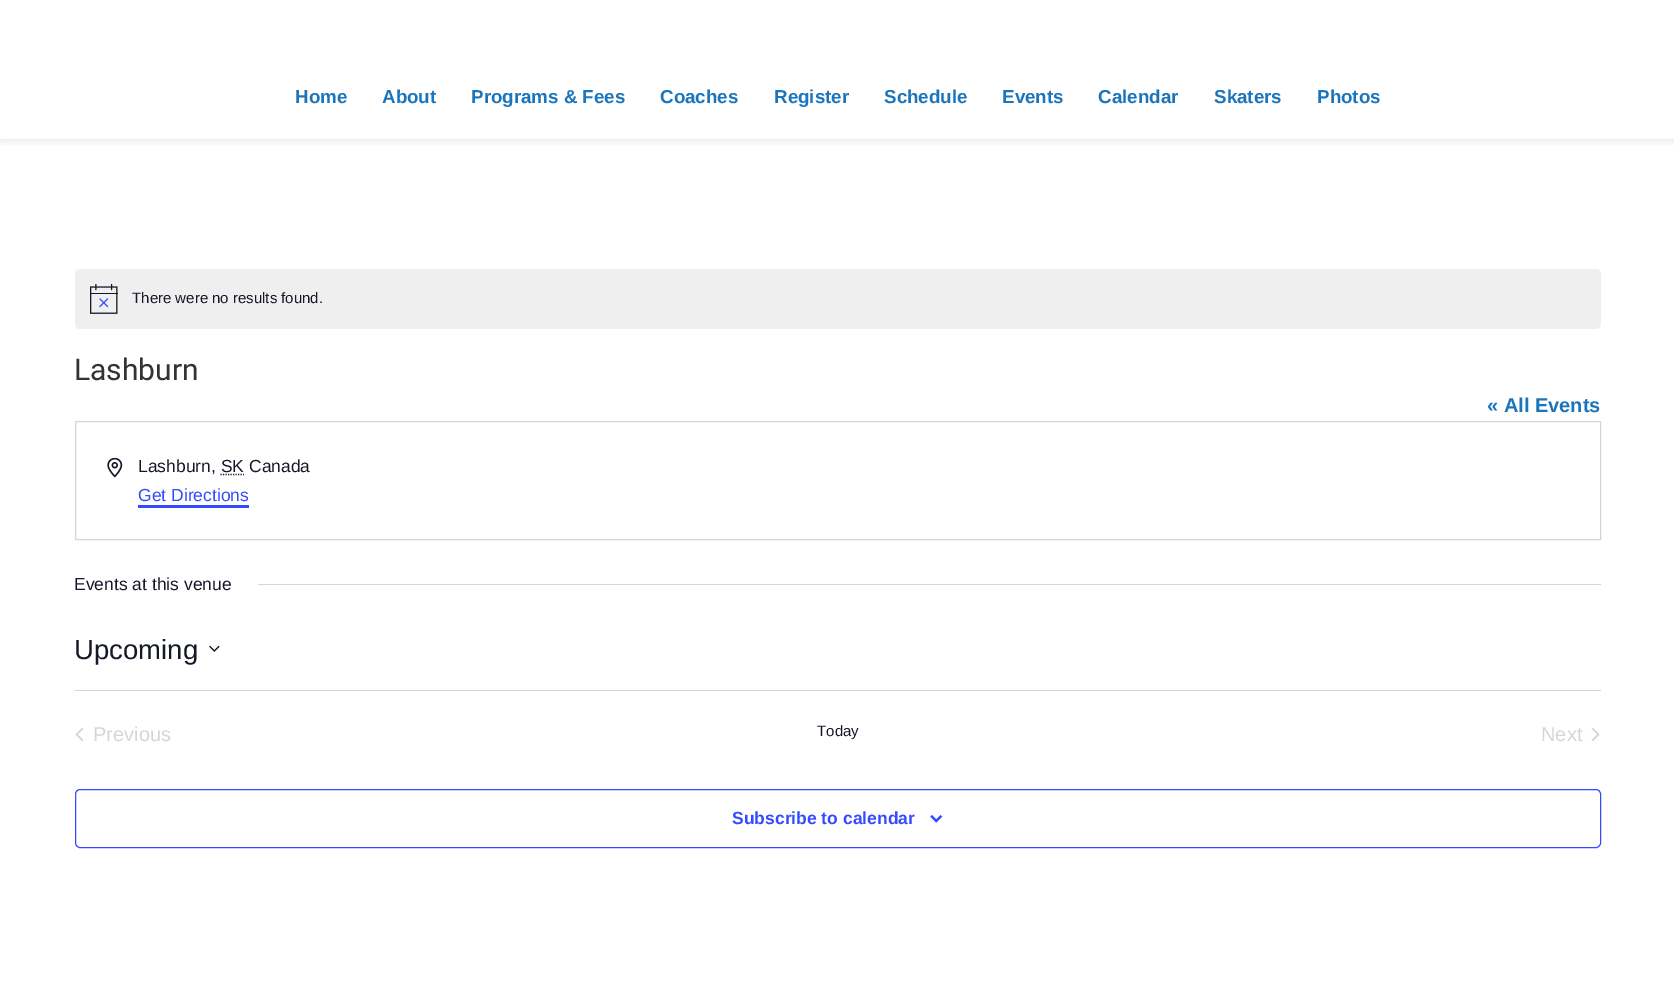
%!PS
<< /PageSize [1674 1004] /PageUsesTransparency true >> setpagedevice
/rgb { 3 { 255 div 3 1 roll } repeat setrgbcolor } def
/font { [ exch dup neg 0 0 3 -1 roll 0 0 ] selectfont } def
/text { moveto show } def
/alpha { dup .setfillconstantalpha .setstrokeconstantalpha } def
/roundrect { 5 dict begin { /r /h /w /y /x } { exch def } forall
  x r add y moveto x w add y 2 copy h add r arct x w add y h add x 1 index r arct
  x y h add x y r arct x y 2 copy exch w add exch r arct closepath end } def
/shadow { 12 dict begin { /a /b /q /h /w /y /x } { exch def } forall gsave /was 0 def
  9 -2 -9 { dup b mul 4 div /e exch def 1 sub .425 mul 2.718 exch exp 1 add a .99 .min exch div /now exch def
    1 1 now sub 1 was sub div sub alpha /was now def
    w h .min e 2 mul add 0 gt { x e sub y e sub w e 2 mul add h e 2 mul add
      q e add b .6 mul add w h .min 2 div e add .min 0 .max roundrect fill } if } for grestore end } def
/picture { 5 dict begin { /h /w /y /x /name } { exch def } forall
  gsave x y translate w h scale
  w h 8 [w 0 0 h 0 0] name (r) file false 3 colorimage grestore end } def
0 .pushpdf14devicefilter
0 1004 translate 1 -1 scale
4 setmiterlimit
255 255 255 rgb
0 0 1674 1004 rectfill
gsave
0 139 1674 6 rectclip
0 0 0 rgb
0 0 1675 139 0 6 0.14 shadow
grestore
239 239 240 rgb
75 269 1526 60 5 roundrect fill
(img_01.rgb) 90 284 28 30 picture
213 213 213 rgb
75.5 421.5 1525 118 rectstroke
(img_02.rgb) 107 458 16 20 picture
20 24 39 rgb
1.2 setlinewidth
[1.25 1.25] 0 setdash
220.5 474.5 moveto 23.5 0 rlineto stroke
51 74 255 rgb
138 505 111 3 rectfill
213 213 213 rgb
258 584 1343 1 rectfill
(img_03.rgb) 209 645 11 7 picture
75 690 1526 1 rectfill
(img_04.rgb) 75 728 9 14 picture
(img_05.rgb) 1591 728 9 14 picture
51 74 255 rgb
1 setlinewidth
[] 0 setdash
75.5 789.5 1525 58 4.5 roundrect stroke
(img_06.rgb) 930 815 13 8 picture
/LiberationSans-Bold 18.75 font
26 117 188 rgb
(Home) 295 103 text
(About) 382 103 text
(Programs & Fees) 471 103 text
(Coaches) 660 103 text
(Register) 774 103 text
(Schedule) 884 103 text
(Events) 1002 103 text
(Calendar) 1098 103 text
(Skaters) 1214 103 text
(Photos) 1317 103 text
/LiberationSans-Regular 15 font
20 24 39 rgb
(There were no results found.) 132 303 text
/Roboto-Regular 30 font
51 51 51 rgb
(Lashburn) 74 380 text
/LiberationSans-Bold 20 font
26 117 188 rgb
(« All Events) 1487 412 text
/LiberationSans-Regular 17.5 font
20 24 39 rgb
(Lashburn, SK Canada) 138 472 text
51 74 255 rgb
(Get Directions) 138 501 text
20 24 39 rgb
(Events at this venue) 74 590 text
/LiberationSans-Regular 27.5 font
(Upcoming) 74 659 text
/LiberationSans-Regular 20 font
213 213 213 rgb
(Previous) 93 741 text
/LiberationSans-Regular 15 font
20 24 39 rgb
(Today) 817 736 text
/LiberationSans-Regular 20 font
213 213 213 rgb
(Next) 1541 741 text
/LiberationSans-Bold 17.5 font
51 74 255 rgb
(Subscribe to calendar) 732 824 text
.poppdf14devicefilter showpage
